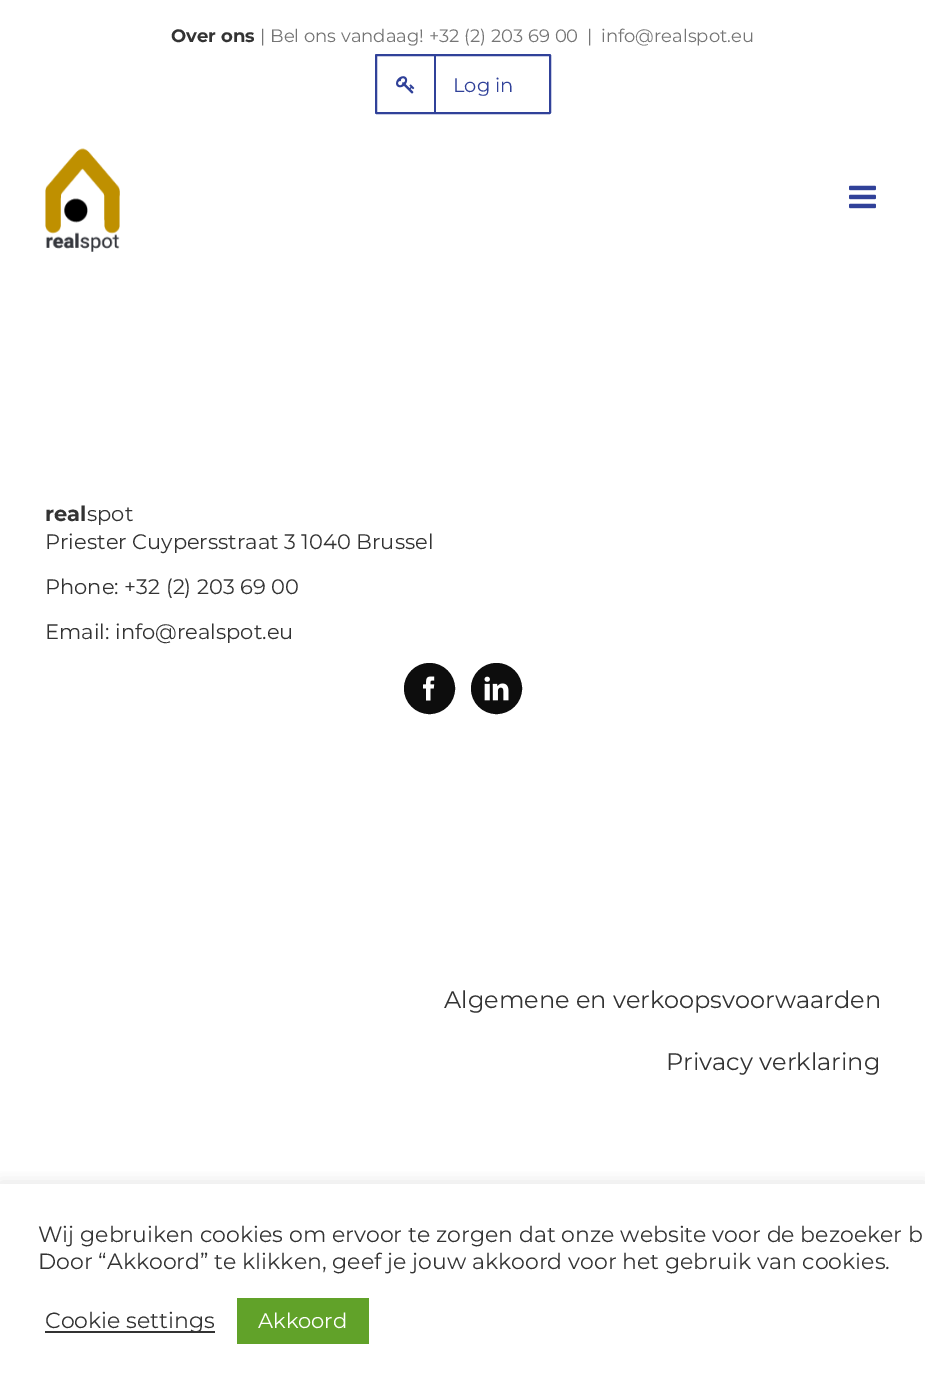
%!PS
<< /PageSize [925 1389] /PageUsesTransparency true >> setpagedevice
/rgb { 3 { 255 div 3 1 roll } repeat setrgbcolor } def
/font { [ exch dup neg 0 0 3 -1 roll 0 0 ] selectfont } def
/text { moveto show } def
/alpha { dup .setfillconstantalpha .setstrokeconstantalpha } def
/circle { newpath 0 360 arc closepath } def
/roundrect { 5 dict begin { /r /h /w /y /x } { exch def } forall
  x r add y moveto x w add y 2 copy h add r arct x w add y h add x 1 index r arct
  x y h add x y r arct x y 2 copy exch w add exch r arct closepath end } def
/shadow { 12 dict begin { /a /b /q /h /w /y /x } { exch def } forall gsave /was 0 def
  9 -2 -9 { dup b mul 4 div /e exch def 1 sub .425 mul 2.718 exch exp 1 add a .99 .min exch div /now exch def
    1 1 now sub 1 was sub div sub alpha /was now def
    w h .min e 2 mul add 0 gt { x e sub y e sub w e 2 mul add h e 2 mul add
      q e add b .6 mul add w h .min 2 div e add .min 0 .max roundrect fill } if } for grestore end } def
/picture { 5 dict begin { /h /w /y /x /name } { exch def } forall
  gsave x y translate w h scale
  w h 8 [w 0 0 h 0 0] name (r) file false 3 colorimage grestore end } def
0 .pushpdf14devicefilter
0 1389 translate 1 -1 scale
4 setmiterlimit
255 255 255 rgb
0 0 925 1389 rectfill
48 65 153 rgb
2 setlinewidth
376 55 174 58 0.5 roundrect stroke
434 56 2 57 rectfill
(img_01.rgb) 396 76 19 18 picture
(img_02.rgb) 45 148 75 104 picture
(img_03.rgb) 849 185 27 24 picture
13 13 13 rgb
429.5 688.5 24.5 circle gsave fill grestore
stroke
(img_04.rgb) 423 676 12 25 picture
496.5 688.5 24.5 circle gsave fill grestore
stroke
(img_05.rgb) 484 676 25 25 picture
gsave
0 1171 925 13 rectclip
172 171 171 rgb
0 1182 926 206 0 7.5 0.3 shadow
grestore
51 51 51 rgb
45 1331 170 2 rectfill
97 162 41 rgb
237 1298 132 46 rectfill
/Montserrat-Bold 18 font
51 51 51 rgb
(Over ons) 171 42 text
/Montserrat-Regular 18 font
117 117 117 rgb
(| Bel ons vandaag! +32 \(2\) 203 69 00) 260 42 text
(|) 587 42 text
(info@realspot.eu) 601 42 text
/Montserrat-Regular 19.5 font
48 65 153 rgb
(Log in) 453 92 text
/Montserrat-Bold 21 font
51 51 51 rgb
(real) 45 521 text
/Montserrat-Regular 21 font
(spot) 87 521 text
(Priester Cuypersstraat 3 1040 Brussel) 45 549 text
(Phone: +32 \(2\) 203 69 00) 45 594 text
(Email: info@realspot.eu) 45 639 text
/Montserrat-Regular 24 font
(Algemene en verkoopsvoorwaarden) 444 1008 text
(Privacy verklaring) 666 1070 text
/Montserrat-Regular 22 font
(Wij gebruiken cookies om ervoor te zorgen dat onze website voor de bezoeker b) 38 1242 text
(Door “Akkoord” te klikken, geef je jouw akkoord voor het gebruik van cookies.) 38 1269 text
(Cookie settings) 45 1328 text
/Montserrat-Regular 21 font
255 255 255 rgb
(Akkoord) 258 1328 text
.poppdf14devicefilter showpage
